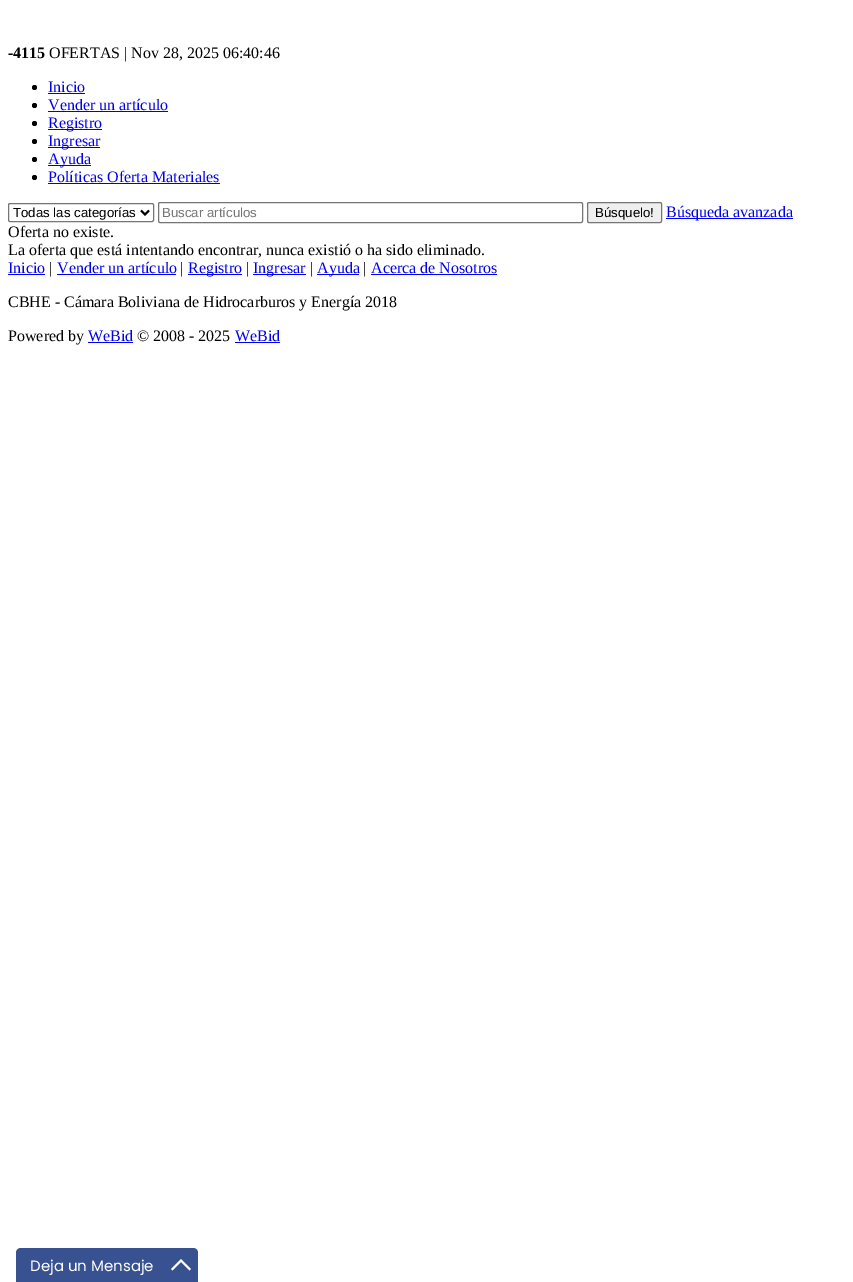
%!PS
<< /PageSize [853 1282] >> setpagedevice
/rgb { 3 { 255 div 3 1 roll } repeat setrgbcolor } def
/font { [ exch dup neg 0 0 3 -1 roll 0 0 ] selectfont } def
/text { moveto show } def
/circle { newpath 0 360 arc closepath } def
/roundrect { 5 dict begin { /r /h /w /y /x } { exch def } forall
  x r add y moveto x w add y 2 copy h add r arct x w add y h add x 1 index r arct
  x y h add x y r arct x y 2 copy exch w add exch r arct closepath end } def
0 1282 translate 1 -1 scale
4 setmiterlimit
255 255 255 rgb
0 0 853 1282 rectfill
0 0 0 rgb
34.5 87.5 2.5 circle fill
0 0 238 rgb
48 93 37 1 rectfill
0 0 0 rgb
34.5 105.5 2.5 circle fill
0 0 238 rgb
48 111 120 1 rectfill
0 0 0 rgb
34.5 123.5 2.5 circle fill
0 0 238 rgb
48 129 54 1 rectfill
0 0 0 rgb
34.5 141.5 2.5 circle fill
0 0 238 rgb
48 147 52 1 rectfill
0 0 0 rgb
34.5 159.5 2.5 circle fill
0 0 238 rgb
48 165 43 1 rectfill
0 0 0 rgb
34.5 177.5 2.5 circle fill
0 0 238 rgb
48 183 172 1 rectfill
118 118 118 rgb
8.5 203.5 145 18 1.5 roundrect stroke
0 0 0 rgb
2 setlinewidth
141 210.5 moveto 4 4 rlineto 4 -4 rlineto stroke
118 118 118 rgb
1 setlinewidth
158.5 202.5 424 20 1.5 roundrect stroke
239 239 239 rgb
587.5 202.5 74 20 1.5 roundrect gsave fill grestore
118 118 118 rgb
stroke
0 0 238 rgb
666 218 127 1 rectfill
8 274 37 1 rectfill
57 274 119 1 rectfill
188 274 54 1 rectfill
253 274 53 1 rectfill
317 274 42 1 rectfill
371 274 126 1 rectfill
88 342 45 1 rectfill
235 342 45 1 rectfill
56 82 145 rgb
21 1248 moveto 172 0 rlineto 3 0 5 2 5 5 rcurveto 0 29 rlineto -182 0 rlineto 0 -29 rlineto 0 -3 2 -5 5 -5 rcurveto closepath fill
255 255 255 rgb
181 1259 moveto 10 10 rlineto -1.5 1.5 rlineto -8.5 -8.5 rlineto -8.5 8.5 rlineto -1.5 -1.5 rlineto closepath fill
/LiberationSerif-Bold 16 font
0 0 0 rgb
(-4115) 8 58 text
/LiberationSerif-Regular 16 font
(OFERTAS | Nov 28, 2025 06:40:46) 49 58 text
0 0 238 rgb
(Inicio) 48 92 text
(Vender un artículo) 48 110 text
(Registro) 48 128 text
(Ingresar) 48 146 text
(Ayuda) 48 164 text
(Políticas Oferta Materiales) 48 182 text
/LiberationSans-Regular 13.25 font
0 0 0 rgb
(Todas las categorías) 13 217 text
117 117 117 rgb
(Buscar artículos) 162 217 text
0 0 0 rgb
(Búsquelo!) 595 217 text
/LiberationSerif-Regular 16 font
0 0 238 rgb
(Búsqueda avanzada) 666 217 text
0 0 0 rgb
(Oferta no existe.) 8 237 text
(La oferta que está intentando encontrar, nunca existió o ha sido eliminado.) 8 255 text
0 0 238 rgb
(Inicio) 8 273 text
0 0 0 rgb
(|) 49 273 text
0 0 238 rgb
(Vender un artículo) 57 273 text
0 0 0 rgb
(|) 180 273 text
0 0 238 rgb
(Registro) 188 273 text
0 0 0 rgb
(|) 246 273 text
0 0 238 rgb
(Ingresar) 253 273 text
0 0 0 rgb
(|) 310 273 text
0 0 238 rgb
(Ayuda) 317 273 text
0 0 0 rgb
(|) 363 273 text
0 0 238 rgb
(Acerca de Nosotros) 371 273 text
0 0 0 rgb
(CBHE - Cámara Boliviana de Hidrocarburos y Energía 2018) 8 307 text
(Powered by) 8 341 text
0 0 238 rgb
(WeBid) 88 341 text
0 0 0 rgb
(© 2008 - 2025) 137 341 text
0 0 238 rgb
(WeBid) 235 341 text
/Poppins-Regular 15 font
255 255 255 rgb
(Deja un Mensaje) 30 1271 text
showpage
